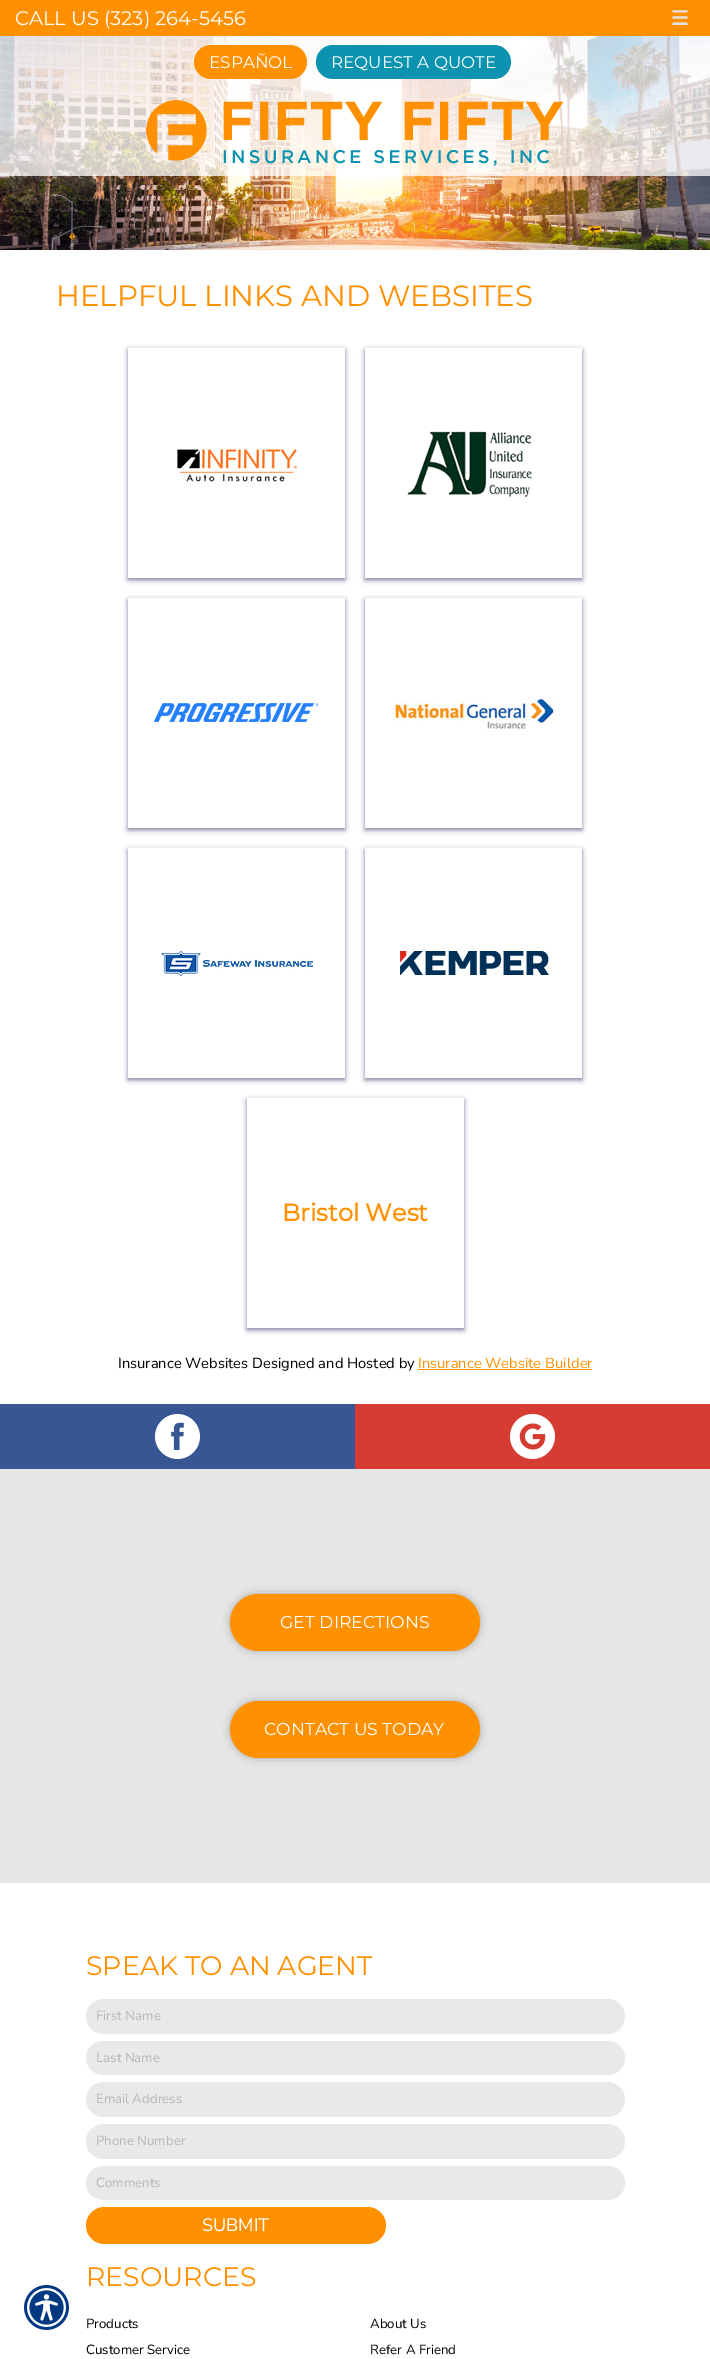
%!PS
<< /PageSize [710 2359] /PageUsesTransparency true >> setpagedevice
/rgb { 3 { 255 div 3 1 roll } repeat setrgbcolor } def
/font { [ exch dup neg 0 0 3 -1 roll 0 0 ] selectfont } def
/text { moveto show } def
/alpha { dup .setfillconstantalpha .setstrokeconstantalpha } def
/roundrect { 5 dict begin { /r /h /w /y /x } { exch def } forall
  x r add y moveto x w add y 2 copy h add r arct x w add y h add x 1 index r arct
  x y h add x y r arct x y 2 copy exch w add exch r arct closepath end } def
/shadow { 12 dict begin { /a /b /q /h /w /y /x } { exch def } forall gsave /was 0 def
  9 -2 -9 { dup b mul 4 div /e exch def 1 sub .425 mul 2.718 exch exp 1 add a .99 .min exch div /now exch def
    1 1 now sub 1 was sub div sub alpha /was now def
    w h .min e 2 mul add 0 gt { x e sub y e sub w e 2 mul add h e 2 mul add
      q e add b .6 mul add w h .min 2 div e add .min 0 .max roundrect fill } if } for grestore end } def
/picture { 5 dict begin { /h /w /y /x /name } { exch def } forall
  gsave x y translate w h scale
  w h 8 [w 0 0 h 0 0] name (r) file false 3 colorimage grestore end } def
0 .pushpdf14devicefilter
0 2359 translate 1 -1 scale
4 setmiterlimit
255 255 255 rgb
0 0 710 2359 rectfill
(img_02.rgb) 0 36 710 214 picture
0.75 alpha
0 36 710 140 rectfill
1 alpha
255 144 0 rgb
0 0 710 36 rectfill
194 45 113 34 17 roundrect fill
12 147 176 rgb
316 45 195 34 17 roundrect fill
(img_01.rgb) 146 100 418 66 picture
gsave
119 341 moveto 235 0 rlineto 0 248 rlineto -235 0 rlineto closepath 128 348 moveto 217 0 rlineto 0 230 rlineto -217 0 rlineto closepath eoclip newpath
0 0 68 rgb
128 350 217 230 0 2.5 0.5 shadow
grestore
(img_03.rgb) 177 448 120 40 picture
gsave
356 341 moveto 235 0 rlineto 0 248 rlineto -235 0 rlineto closepath 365 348 moveto 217 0 rlineto 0 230 rlineto -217 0 rlineto closepath eoclip newpath
0 0 68 rgb
365 350 217 230 0 2.5 0.5 shadow
grestore
(img_04.rgb) 407 431 125 66 picture
gsave
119 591 moveto 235 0 rlineto 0 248 rlineto -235 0 rlineto closepath 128 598 moveto 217 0 rlineto 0 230 rlineto -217 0 rlineto closepath eoclip newpath
0 0 68 rgb
128 600 217 230 0 2.5 0.5 shadow
grestore
(img_05.rgb) 153 701 166 21 picture
gsave
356 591 moveto 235 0 rlineto 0 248 rlineto -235 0 rlineto closepath 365 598 moveto 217 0 rlineto 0 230 rlineto -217 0 rlineto closepath eoclip newpath
0 0 68 rgb
365 600 217 230 0 2.5 0.5 shadow
grestore
(img_06.rgb) 390 698 166 36 picture
gsave
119 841 moveto 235 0 rlineto 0 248 rlineto -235 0 rlineto closepath 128 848 moveto 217 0 rlineto 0 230 rlineto -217 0 rlineto closepath eoclip newpath
0 0 68 rgb
128 850 217 230 0 2.5 0.5 shadow
grestore
(img_07.rgb) 161 951 152 25 picture
gsave
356 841 moveto 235 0 rlineto 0 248 rlineto -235 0 rlineto closepath 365 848 moveto 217 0 rlineto 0 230 rlineto -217 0 rlineto closepath eoclip newpath
0 0 68 rgb
365 850 217 230 0 2.5 0.5 shadow
grestore
(img_08.rgb) 400 950 149 29 picture
gsave
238 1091 moveto 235 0 rlineto 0 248 rlineto -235 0 rlineto closepath 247 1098 moveto 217 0 rlineto 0 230 rlineto -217 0 rlineto closepath eoclip newpath
0 0 68 rgb
247 1100 217 230 0 2.5 0.5 shadow
grestore
255 144 0 rgb
418 1369 174 1 rectfill
55 86 147 rgb
0 1404 355 65 rectfill
(img_09.rgb) 155 1414 45 45 picture
214 60 49 rgb
355 1404 355 65 rectfill
(img_10.rgb) 510 1414 45 45 picture
230 230 230 rgb
0 1469 710 414 rectfill
0 0 0 rgb
230 1594 250 57 28.5 4 0.25 shadow
255 144 0 rgb
230 1594 250 57 28.5 roundrect fill
0 0 0 rgb
230 1701 250 57 28.5 4 0.25 shadow
255 144 0 rgb
230 1701 250 57 28.5 roundrect fill
233 233 233 rgb
86 1999 539 35 17.5 roundrect fill
86 2041 539 34 17 roundrect fill
86 2082 539 35 17.5 roundrect fill
86 2124 539 35 17.5 roundrect fill
86 2166 539 34 17 roundrect fill
255 144 0 rgb
86 2207 300 37 18.5 roundrect fill
(img_11.rgb) 24 2285 45 45 picture
/Montserrat-Thin 19.6 font
255 255 255 rgb
(CALL US \(323\) 264-5456) 15 25 text
/DejaVuSans-Bold 19.6 font
226 226 226 rgb
(☰) 671 25 text
/Montserrat-Thin 16.75 font
255 255 255 rgb
(ESPAÑOL) 209 68 text
(REQUEST A QUOTE) 331 68 text
/Montserrat-Thin 29.3 font
255 144 0 rgb
(HELPFUL LINKS AND WEBSITES) 56 306 text
/Montserrat-Bold 24 font
(Bristol West) 282 1221 text
/Nunito-ExtraLight 14.7 font
0 0 0 rgb
(Insurance Websites Designed and Hosted by) 118 1368 text
255 144 0 rgb
(Insurance Website Builder) 418 1368 text
/Montserrat-Thin 17.25 font
255 255 255 rgb
(GET DIRECTIONS) 280 1628 text
(CONTACT US TODAY) 264 1735 text
/Montserrat-Thin 26.75 font
255 144 0 rgb
(SPEAK TO AN AGENT) 86 1975 text
/Nunito-ExtraLight 13.25 font
182 182 182 rgb
(First Name) 96 2020 text
(Last Name) 96 2062 text
(Email Address) 96 2103 text
(Phone Number) 96 2145 text
(Comments) 96 2187 text
/Nunito-ExtraLight 18 font
255 255 255 rgb
(SUBMIT) 202 2231 text
/Montserrat-Thin 26.75 font
255 144 0 rgb
(RESOURCES) 86 2286 text
/Nunito-ExtraLight 13.25 font
0 0 0 rgb
(Products) 86 2328 text
(Customer Service) 86 2354 text
(About Us) 370 2328 text
(Refer A Friend) 370 2354 text
.poppdf14devicefilter showpage
